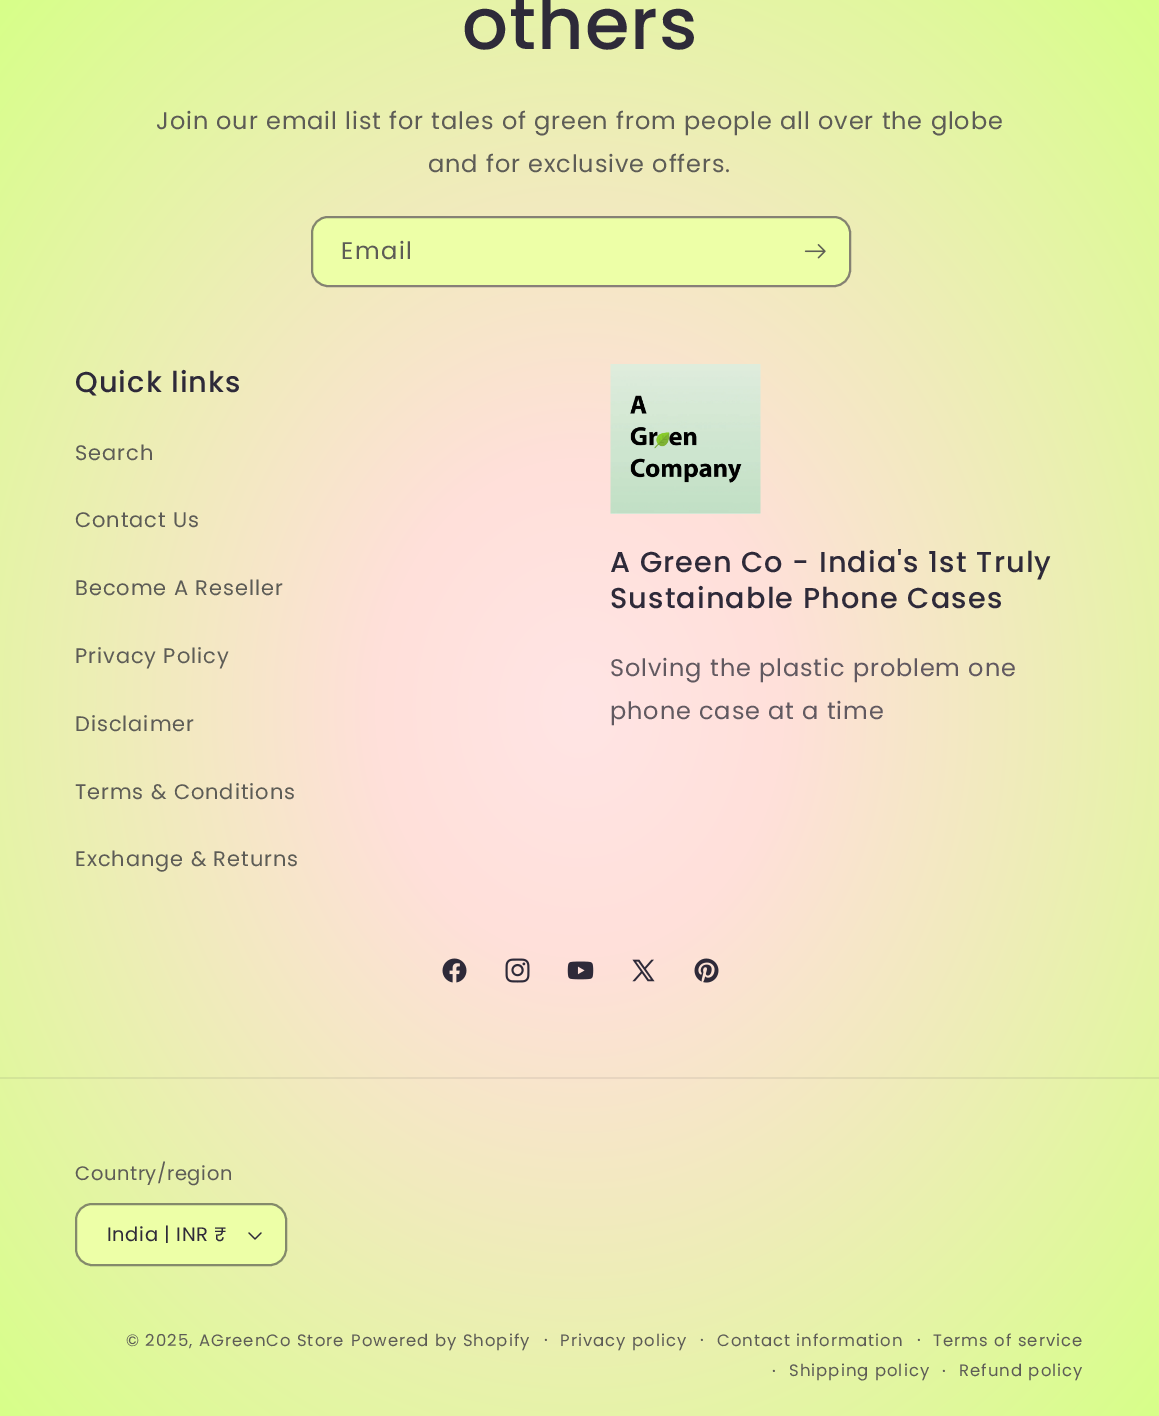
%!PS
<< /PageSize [1159 1416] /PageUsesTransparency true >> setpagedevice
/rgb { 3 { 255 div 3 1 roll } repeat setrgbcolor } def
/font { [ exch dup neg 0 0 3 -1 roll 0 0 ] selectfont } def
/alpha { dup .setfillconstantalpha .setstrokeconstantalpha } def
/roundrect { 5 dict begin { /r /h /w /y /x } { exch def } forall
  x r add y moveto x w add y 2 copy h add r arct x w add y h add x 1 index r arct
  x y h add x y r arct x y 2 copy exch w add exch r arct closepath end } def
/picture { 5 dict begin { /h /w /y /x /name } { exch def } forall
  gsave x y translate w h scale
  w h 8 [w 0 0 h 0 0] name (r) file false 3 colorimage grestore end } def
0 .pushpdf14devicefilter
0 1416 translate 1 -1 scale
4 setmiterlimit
255 255 255 rgb
0 0 1159 1416 rectfill
gsave 0 0 moveto 1159 0 rlineto 0 299 rlineto -1159 0 rlineto closepath clip newpath 580 708 translate 820 1001 scale
<< /ShadingType 3 /ColorSpace /DeviceRGB /Coords [0 0 0 0 0 1] /Extend [true true] /Function << /FunctionType 3 /Domain [0 1] /Functions [<< /FunctionType 2 /Domain [0 1] /C0 [1 0.898 0.898] /C1 [1 0.878 0.855] /N 1 >> << /FunctionType 2 /Domain [0 1] /C0 [1 0.878 0.855] /C1 [0.843 1 0.537] /N 1 >>] /Bounds [0.25] /Encode [0 1 0 1] >> >> shfill grestore
237 255 167 rgb
312 218 537 67 15 roundrect fill
0.55 alpha
46 42 57 rgb
2 setlinewidth
312 217 538 69 16 roundrect stroke
1 alpha
(img_01.rgb) 804 244 22 15 picture
gsave 0 299 moveto 1159 0 rlineto 0 1117 rlineto -1159 0 rlineto closepath clip newpath 580 708 translate 820 1001 scale
<< /ShadingType 3 /ColorSpace /DeviceRGB /Coords [0 0 0 0 0 1] /Extend [true true] /Function << /FunctionType 3 /Domain [0 1] /Functions [<< /FunctionType 2 /Domain [0 1] /C0 [1 0.898 0.898] /C1 [1 0.878 0.855] /N 1 >> << /FunctionType 2 /Domain [0 1] /C0 [1 0.878 0.855] /C1 [0.843 1 0.537] /N 1 >>] /Bounds [0.25] /Encode [0 1 0 1] >> >> shfill grestore
gsave 0 1077 moveto 1159 0 rlineto 0 2 rlineto -1159 0 rlineto closepath clip newpath 580 708 translate 820 1001 scale
<< /ShadingType 3 /ColorSpace /DeviceRGB /Coords [0 0 0 0 0 1] /Extend [true true] /Function << /FunctionType 3 /Domain [0 1] /Functions [<< /FunctionType 2 /Domain [0 1] /C0 [0.933 0.839 0.843] /C1 [0.933 0.82 0.804] /N 1 >> << /FunctionType 2 /Domain [0 1] /C0 [0.933 0.82 0.804] /C1 [0.788 0.933 0.514] /N 1 >>] /Bounds [0.25] /Encode [0 1 0 1] >> >> shfill grestore
(img_02.rgb) 610 364 151 150 picture
(img_03.rgb) 442 958 25 25 picture
(img_04.rgb) 505 958 25 25 picture
(img_05.rgb) 567 961 27 19 picture
(img_06.rgb) 632 959 23 23 picture
(img_07.rgb) 694 958 25 25 picture
237 255 167 rgb
75 1203 212 63 17 roundrect fill
(img_08.rgb) 248 1232 14 8 picture
0.55 alpha
46 42 57 rgb
76 1204 210 61 16 roundrect stroke
/Poppins-Medium 72 font
1 alpha
462 49 moveto 1.1 0 (others) ashow
/Poppins-Regular 24 font
93 92 86 rgb
156 129 moveto 0.9 0 (Join our email list for tales of green from people all over the globe) ashow
428 172 moveto 0.9 0 (and for exclusive offers.) ashow
341 259 moveto 1.5 0 (Email) ashow
/Poppins-Medium 28.75 font
46 42 57 rgb
75 392 moveto 1.1 0 (Quick links) ashow
/Poppins-Regular 21 font
93 92 86 rgb
75 460 moveto 0.9 0 (Search) ashow
75 527 moveto 0.9 0 (Contact Us) ashow
75 595 moveto 0.9 0 (Become A Reseller) ashow
75 663 moveto 0.9 0 (Privacy Policy) ashow
75 731 moveto 0.9 0 (Disclaimer) ashow
75 799 moveto 0.9 0 (Terms & Conditions) ashow
75 866 moveto 0.9 0 (Exchange & Returns) ashow
/Poppins-Medium 28.75 font
46 42 57 rgb
610 572 moveto 1.1 0 (A Green Co - India's 1st Truly) ashow
610 608 moveto 1.1 0 (Sustainable Phone Cases) ashow
/Poppins-Regular 24 font
97 89 96 rgb
610 676 moveto 0.9 0 (Solving the plastic problem one) ashow
610 719 moveto 0.9 0 (phone case at a time) ashow
/Poppins-Regular 19.5 font
93 92 86 rgb
75 1180 moveto 0.6 0 (Country/region) ashow
46 42 57 rgb
107 1241 moveto 0.6 0 (India | INR ₹) ashow
/Poppins-Regular 16.5 font
93 92 86 rgb
126 1346 moveto 1 0 (© 2025,) ashow
199 1346 moveto 1 0 (AGreenCo Store) ashow
351 1346 moveto 1 0 (Powered by Shopify) ashow
/Poppins-Regular 18 font
544 1346 moveto 1 0 (·) ashow
/Poppins-Regular 16.5 font
560 1346 moveto 1 0 (Privacy policy) ashow
/Poppins-Regular 18 font
700 1346 moveto 1 0 (·) ashow
/Poppins-Regular 16.5 font
717 1346 moveto 1 0 (Contact information) ashow
/Poppins-Regular 18 font
917 1346 moveto 1 0 (·) ashow
/Poppins-Regular 16.5 font
933 1346 moveto 1 0 (Terms of service) ashow
/Poppins-Regular 18 font
772 1377 moveto 1 0 (·) ashow
/Poppins-Regular 16.5 font
789 1376 moveto 1 0 (Shipping policy) ashow
/Poppins-Regular 18 font
942 1377 moveto 1 0 (·) ashow
/Poppins-Regular 16.5 font
959 1376 moveto 1 0 (Refund policy) ashow
.poppdf14devicefilter showpage
